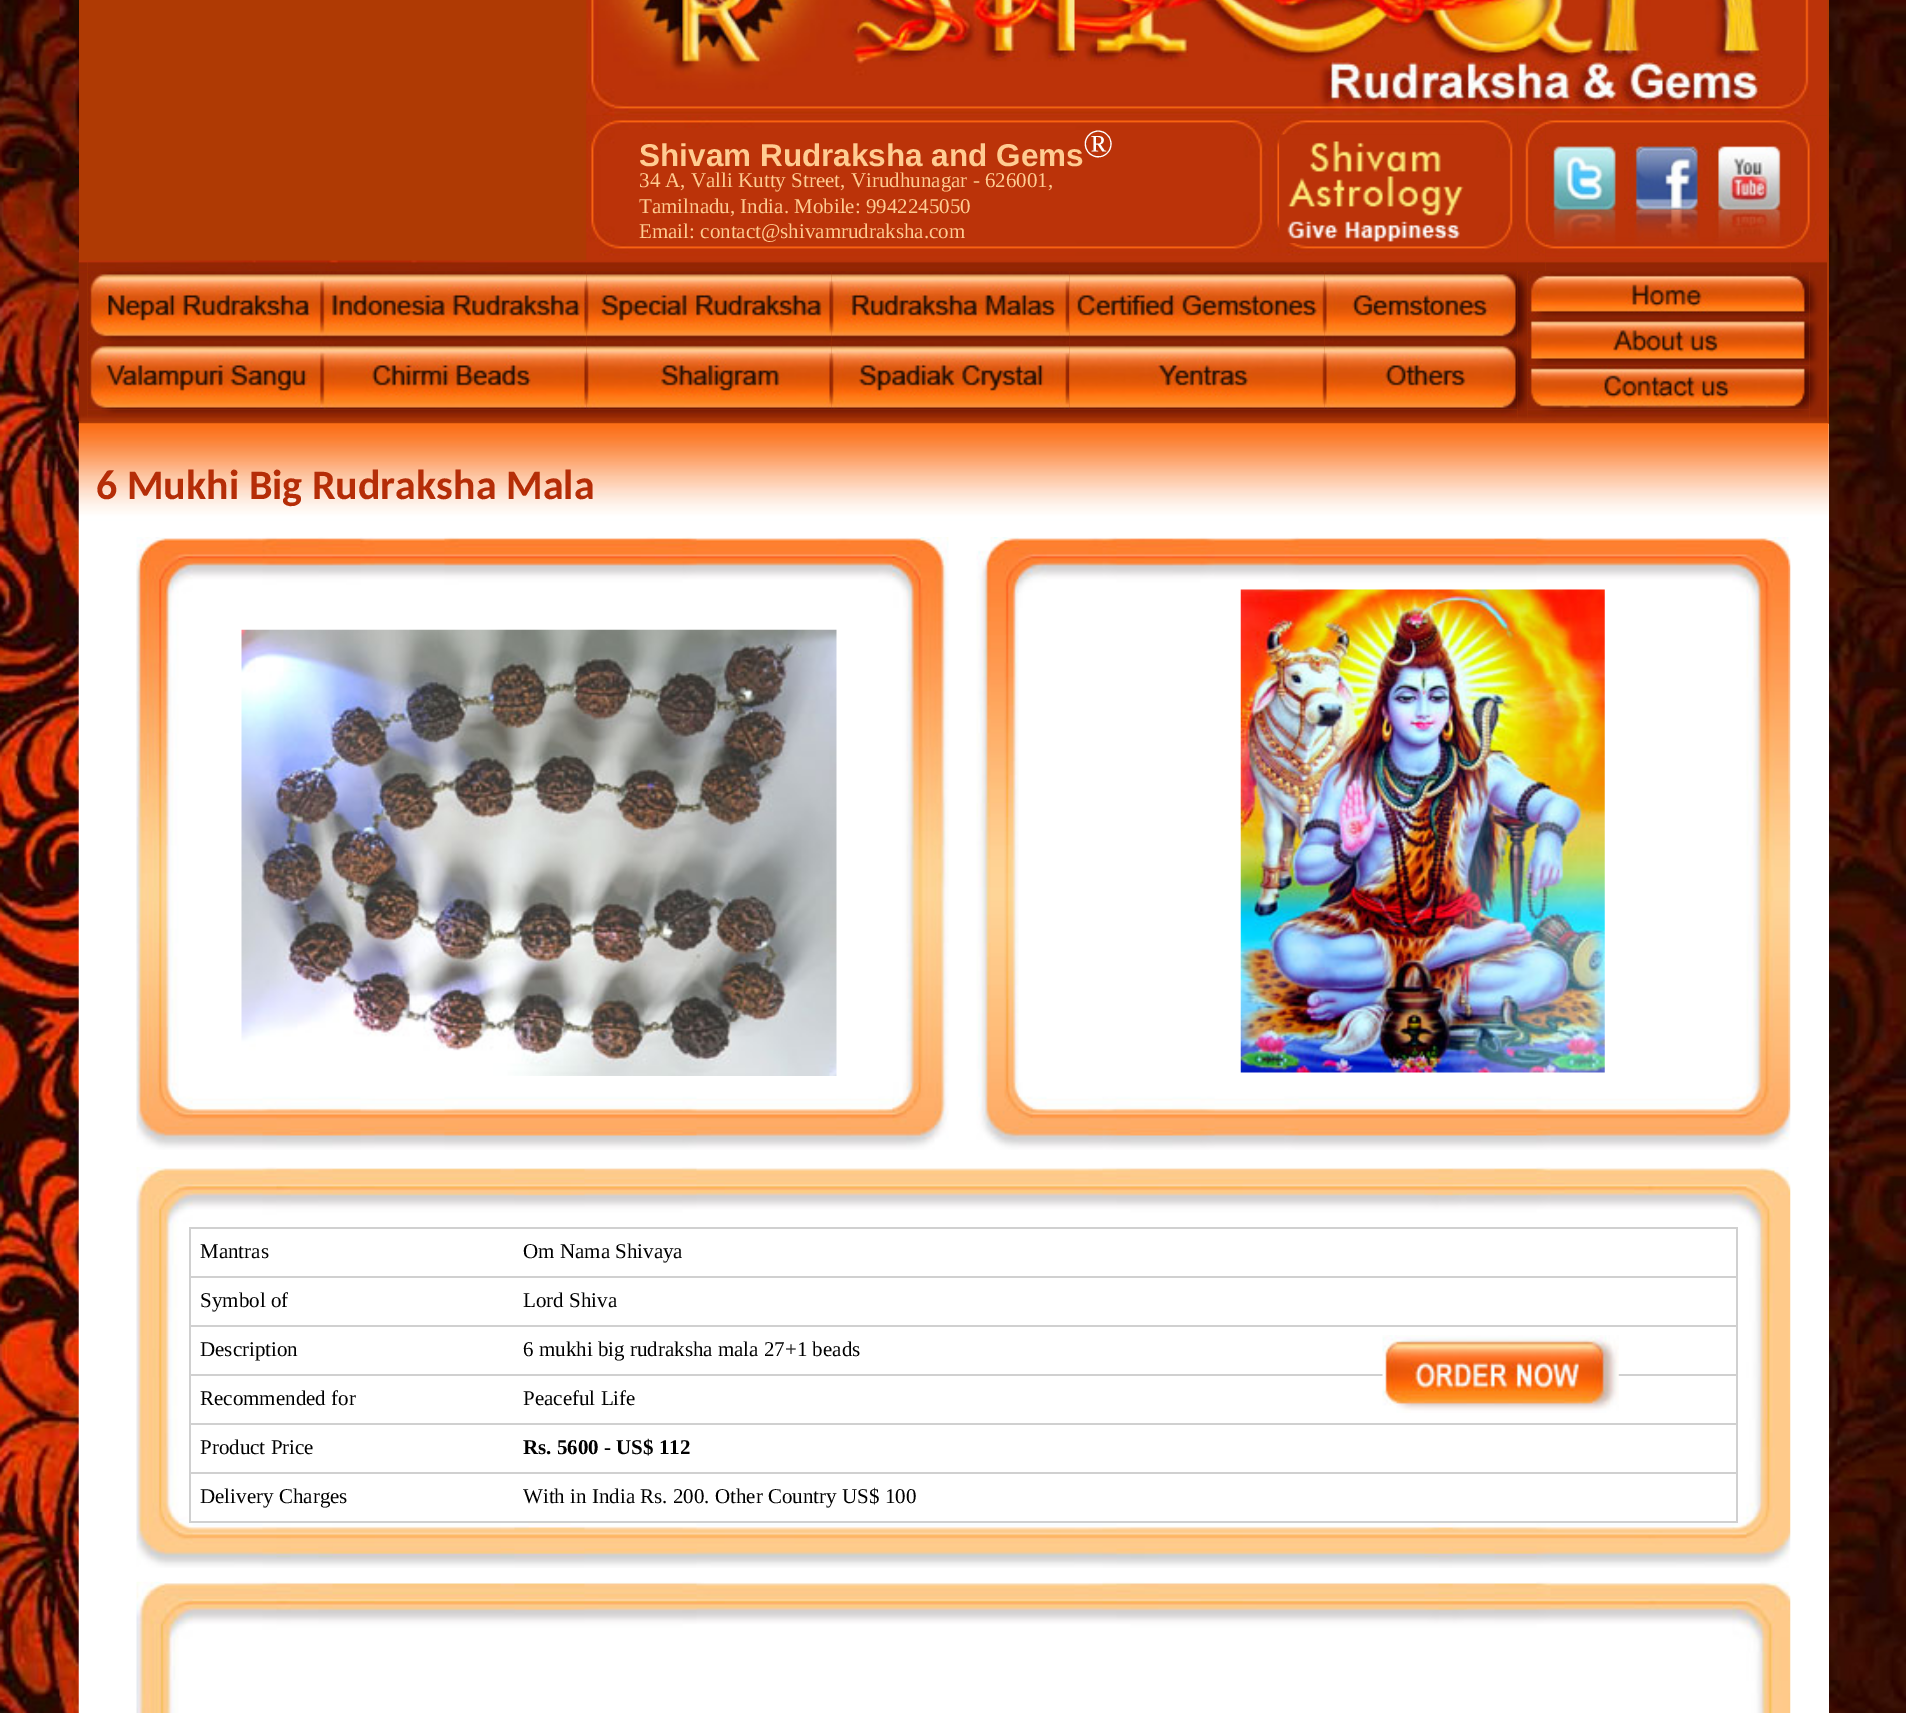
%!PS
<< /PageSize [1906 1713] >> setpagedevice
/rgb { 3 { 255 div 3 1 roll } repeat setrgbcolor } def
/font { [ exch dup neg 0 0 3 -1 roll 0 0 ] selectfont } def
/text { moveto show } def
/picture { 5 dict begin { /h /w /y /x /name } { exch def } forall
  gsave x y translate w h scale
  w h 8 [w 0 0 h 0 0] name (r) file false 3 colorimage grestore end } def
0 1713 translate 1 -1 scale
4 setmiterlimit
255 255 255 rgb
0 0 1906 1713 rectfill
(img_01.rgb) 0 0 1906 1713 picture
175 58 4 rgb
79 0 1750 424 rectfill
(img_03.rgb) 586 115 931 146 picture
(img_02.rgb) 586 0 1224 116 picture
187 51 9 rgb
1809 0 18 115 rectfill
(img_04.rgb) 1279 134 185 109 picture
(img_05.rgb) 1517 115 29 146 picture
(img_06.rgb) 1545 115 246 28 picture
(img_07.rgb) 1790 115 37 156 picture
(img_08.rgb) 1545 143 79 67 picture
(img_09.rgb) 1624 143 86 67 picture
(img_10.rgb) 1710 143 80 67 picture
(img_11.rgb) 1545 209 246 62 picture
(img_12.rgb) 78 260 10 162 picture
(img_13.rgb) 87 260 1458 11 picture
(img_14.rgb) 87 271 235 70 picture
(img_15.rgb) 322 271 265 70 picture
(img_16.rgb) 586 271 246 70 picture
(img_17.rgb) 831 271 239 70 picture
(img_18.rgb) 1069 271 256 70 picture
(img_19.rgb) 1324 271 194 70 picture
(img_20.rgb) 1517 271 11 151 picture
(img_21.rgb) 1528 271 282 42 picture
(img_22.rgb) 1809 271 18 151 picture
(img_23.rgb) 87 341 235 69 picture
(img_24.rgb) 322 341 265 69 picture
(img_25.rgb) 586 341 246 69 picture
(img_26.rgb) 831 341 239 69 picture
(img_27.rgb) 1069 341 256 69 picture
(img_28.rgb) 1324 341 194 69 picture
(img_29.rgb) 1528 313 282 53 picture
(img_30.rgb) 1528 365 282 45 picture
(img_31.rgb) 87 409 1430 13 picture
(img_32.rgb) 1528 409 282 13 picture
(img_33.rgb) 78 423 1751 1290 picture
(img_34.rgb) 136 537 1655 613 picture
(img_35.rgb) 241 629 596 447 picture
(img_36.rgb) 1240 589 365 484 picture
(img_37.rgb) 136 1167 1655 401 picture
208 208 208 rgb
189 1227 1549 296 rectfill
255 255 255 rgb
191 1229 1545 47 rectfill
191 1327 1545 47 rectfill
191 1376 1545 47 rectfill
(img_38.rgb) 1382 1335 237 78 picture
191 1278 1545 47 rectfill
191 1425 1545 47 rectfill
191 1474 1545 47 rectfill
(img_39.rgb) 136 1581 1655 132 picture
/LiberationSans-Bold 31.5 font
255 204 146 rgb
(Shivam Rudraksha and Gems) 639 166 text
/LiberationSerif-Regular 40 font
255 255 255 rgb
(®) 1083 157 text
/LiberationSerif-Regular 21 font
255 204 146 rgb
(34 A, Valli Kutty Street, Virudhunagar - 626001,) 639 187 text
(Tamilnadu, India. Mobile: 9942245050) 639 213 text
(Email: contact@shivamrudraksha.com) 639 238 text
/Carlito-Bold 42 font
181 45 7 rgb
(6 Mukhi Big Rudraksha Mala) 96 499 text
/LiberationSerif-Regular 21 font
0 0 0 rgb
(Mantras) 200 1258 text
(Om Nama Shivaya) 523 1258 text
(Symbol of) 200 1307 text
(Lord Shiva) 523 1307 text
(Description) 200 1356 text
(6 mukhi big rudraksha mala 27+1 beads) 523 1356 text
(Recommended for) 200 1405 text
(Peaceful Life) 523 1405 text
(Product Price) 200 1454 text
/LiberationSerif-Bold 21 font
(Rs. 5600 - US$ 112) 523 1454 text
/LiberationSerif-Regular 21 font
(Delivery Charges) 200 1503 text
(With in India Rs. 200. Other Country US$ 100) 523 1503 text
showpage
